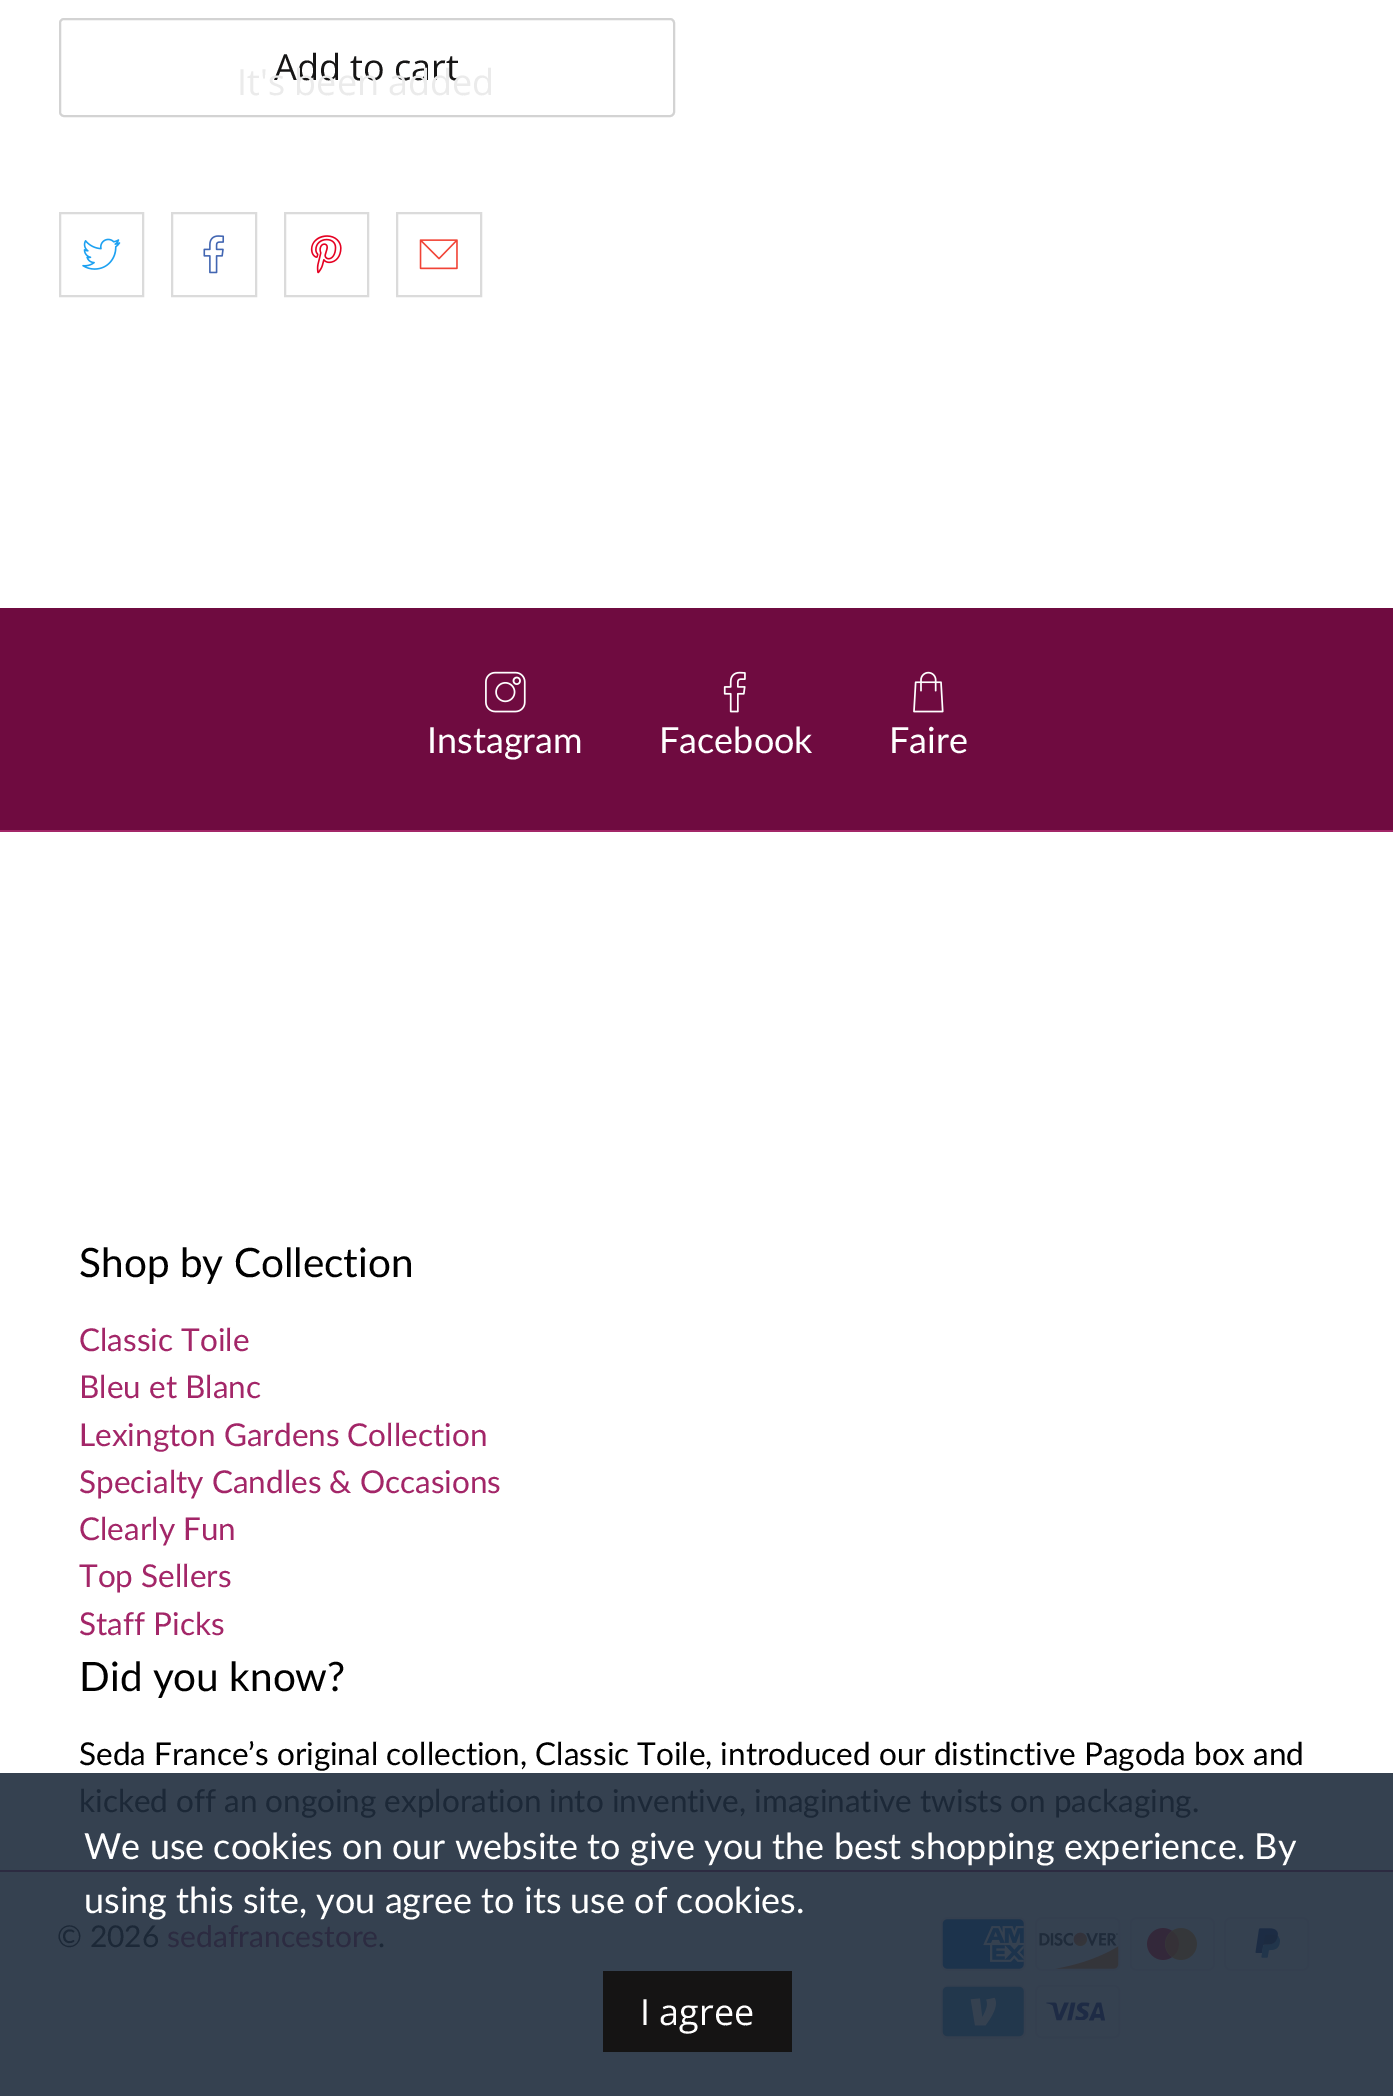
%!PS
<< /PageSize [1393 2096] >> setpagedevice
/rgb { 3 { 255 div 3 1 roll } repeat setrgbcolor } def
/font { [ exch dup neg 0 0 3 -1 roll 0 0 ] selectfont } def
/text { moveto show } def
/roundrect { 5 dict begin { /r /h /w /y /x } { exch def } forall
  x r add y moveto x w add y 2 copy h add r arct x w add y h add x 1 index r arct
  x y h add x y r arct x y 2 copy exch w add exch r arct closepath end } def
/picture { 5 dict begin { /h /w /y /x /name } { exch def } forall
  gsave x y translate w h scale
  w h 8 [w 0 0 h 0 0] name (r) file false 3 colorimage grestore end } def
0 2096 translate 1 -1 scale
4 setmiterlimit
255 255 255 rgb
0 0 1393 2096 rectfill
53 65 80 rgb
0 1773 1393 323 rectfill
211 211 211 rgb
2 setlinewidth
60 19 614 97 4 roundrect stroke
219 219 219 rgb
60 213 83 83 rectstroke
(img_01.rgb) 82 238 39 32 picture
172 213 84 83 rectstroke
(img_02.rgb) 203 235 22 39 picture
285 213 83 83 rectstroke
(img_03.rgb) 310 235 32 39 picture
397 213 84 83 rectstroke
(img_04.rgb) 419 239 39 31 picture
111 11 64 rgb
0 608 1393 222 rectfill
(img_05.rgb) 485 671 41 42 picture
(img_06.rgb) 723 671 23 42 picture
(img_07.rgb) 913 671 31 42 picture
163 38 104 rgb
0 830 1393 2 rectfill
44 43 65 rgb
0 1870 1393 2 rectfill
(img_08.rgb) 941 1917 85 54 picture
(img_09.rgb) 1035 1917 86 54 picture
(img_10.rgb) 1130 1917 85 54 picture
(img_11.rgb) 1224 1917 86 54 picture
(img_12.rgb) 941 1985 85 54 picture
(img_13.rgb) 1035 1985 86 54 picture
21 20 20 rgb
603 1971 189 81 rectfill
/OpenSans-Regular 36 font
22 21 21 rgb
(Add to cart) 274 80 text
235 235 235 rgb
(It's been added) 237 95 text
/Lato-Regular 36 font
255 255 255 rgb
(Instagram) 427 753 text
(Facebook) 659 753 text
(Faire) 889 753 text
/Lato-Regular 40.5 font
0 0 0 rgb
(Shop by Collection) 79 1277 text
/Lato-Regular 31.5 font
163 38 104 rgb
(Classic Toile) 79 1351 text
(Bleu et Blanc) 79 1398 text
(Lexington Gardens Collection) 79 1446 text
(Specialty Candles & Occasions) 79 1493 text
(Clearly Fun) 79 1540 text
(Top Sellers) 79 1587 text
(Staff Picks) 79 1635 text
/Lato-Regular 40.5 font
0 0 0 rgb
(Did you know?) 79 1691 text
/Lato-Regular 31.5 font
(Seda France’s original collection, Classic Toile, introduced our distinctive Pagoda box and) 79 1765 text
28 40 55 rgb
(kicked off an ongoing exploration into inventive, imaginative twists on packaging.) 79 1812 text
/Lato-Regular 30 font
(© 2026) 57 1947 text
44 43 65 rgb
(sedafrancestore) 167 1947 text
28 40 55 rgb
(.) 378 1947 text
/Lato-Regular 36 font
255 255 255 rgb
(We use cookies on our website to give you the best shopping experience. By) 84 1859 text
(using this site, you agree to its use of cookies.) 84 1913 text
/OpenSans-Regular 36 font
(I agree) 640 2025 text
showpage
